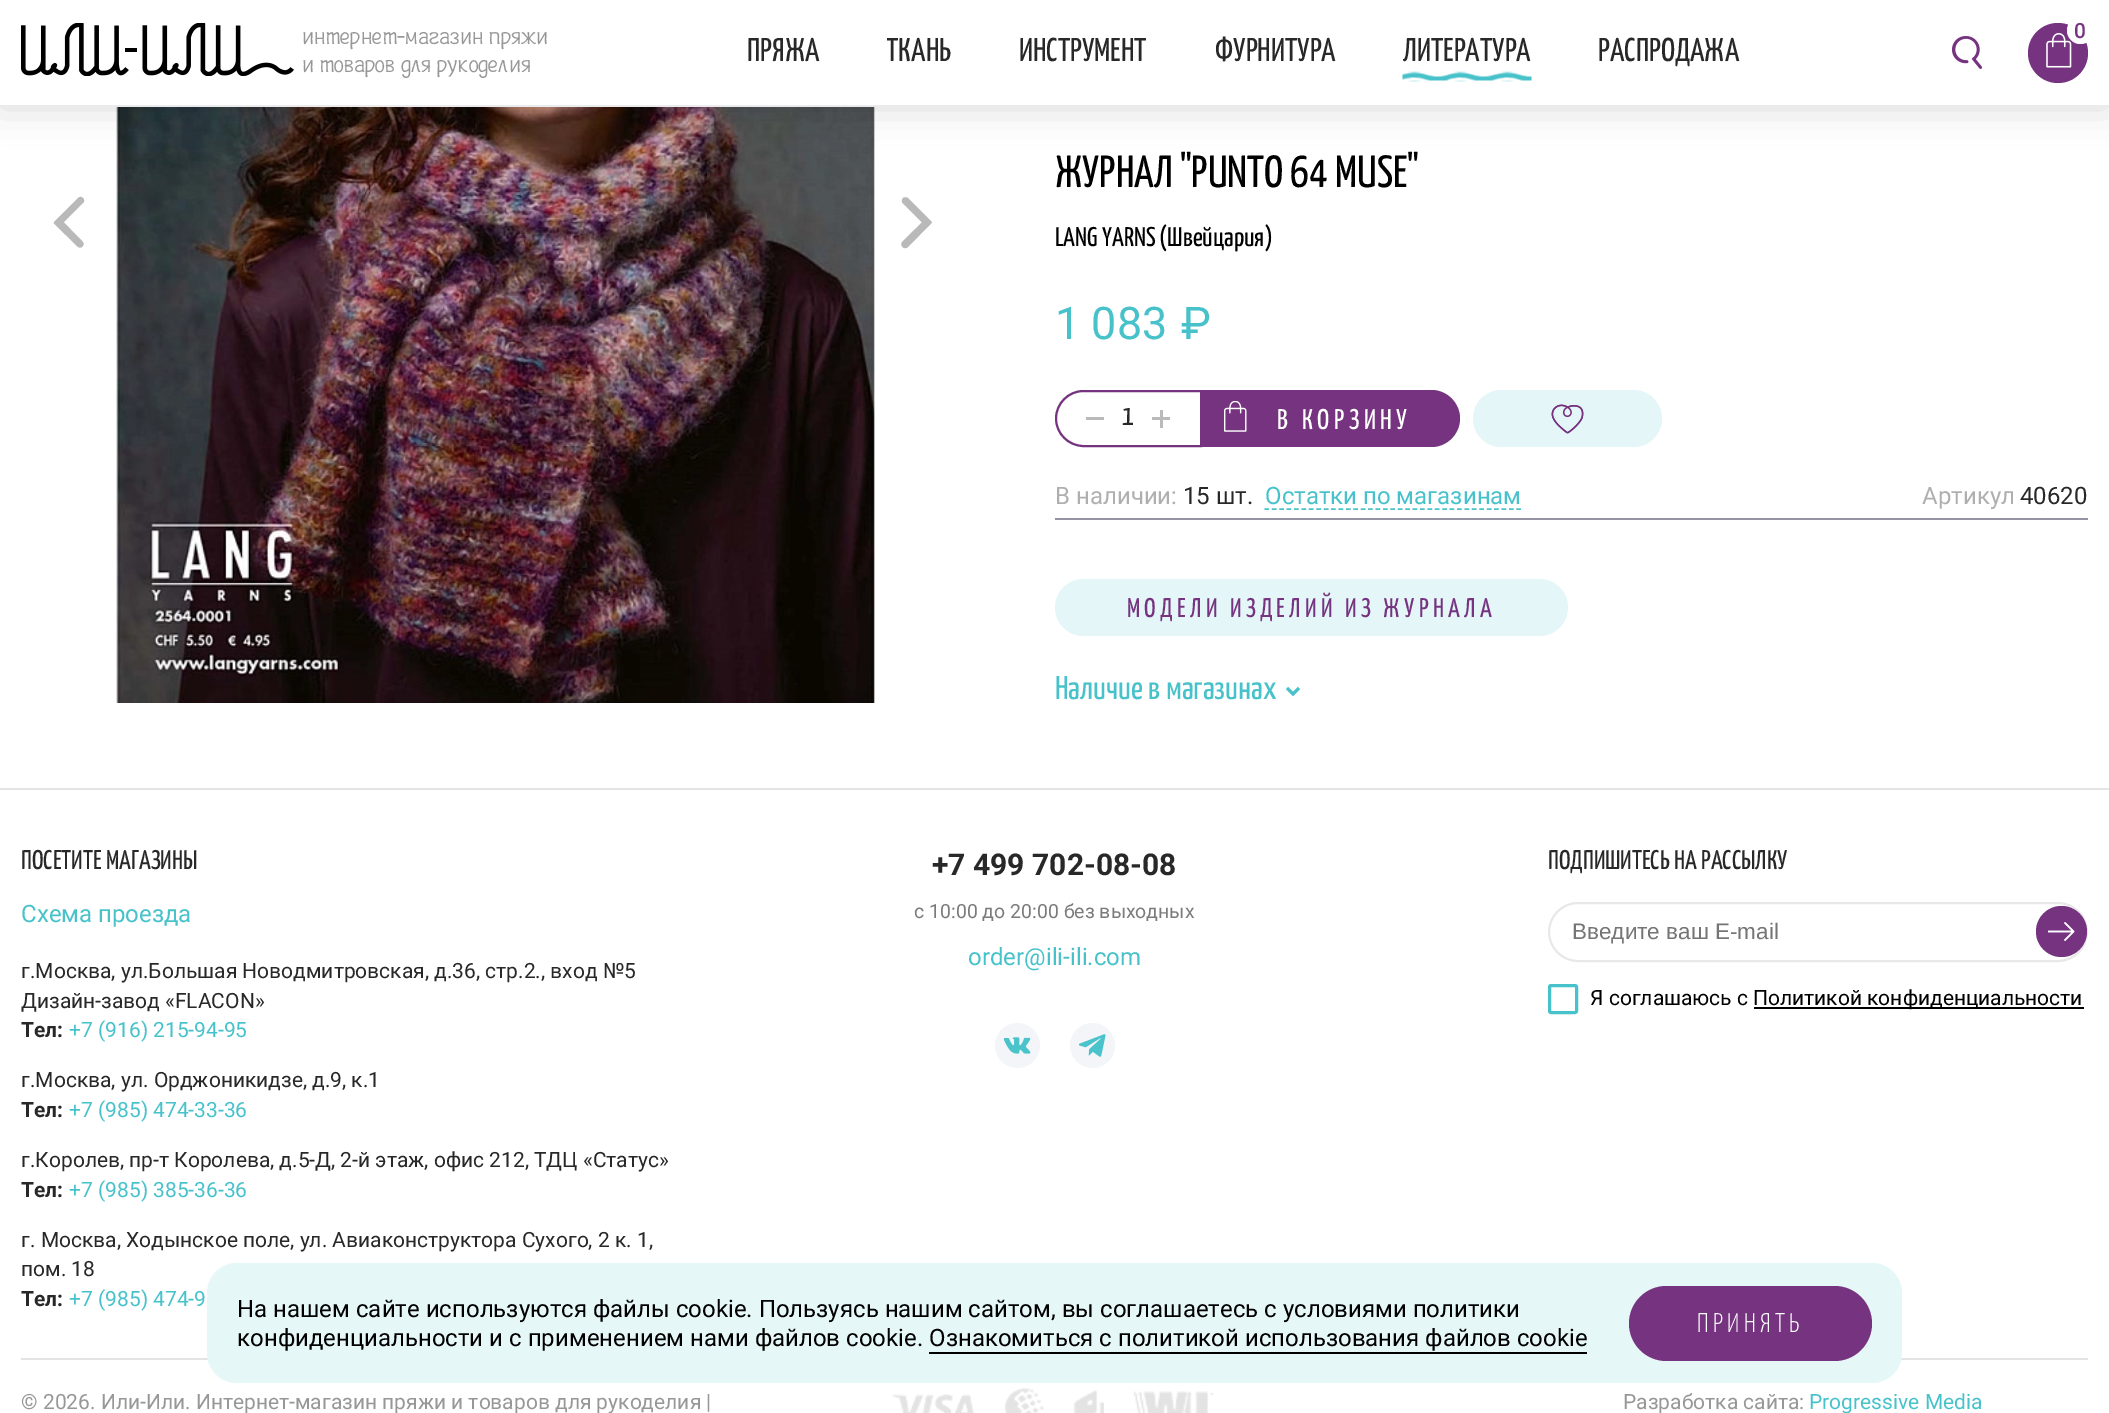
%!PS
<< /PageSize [2109 1413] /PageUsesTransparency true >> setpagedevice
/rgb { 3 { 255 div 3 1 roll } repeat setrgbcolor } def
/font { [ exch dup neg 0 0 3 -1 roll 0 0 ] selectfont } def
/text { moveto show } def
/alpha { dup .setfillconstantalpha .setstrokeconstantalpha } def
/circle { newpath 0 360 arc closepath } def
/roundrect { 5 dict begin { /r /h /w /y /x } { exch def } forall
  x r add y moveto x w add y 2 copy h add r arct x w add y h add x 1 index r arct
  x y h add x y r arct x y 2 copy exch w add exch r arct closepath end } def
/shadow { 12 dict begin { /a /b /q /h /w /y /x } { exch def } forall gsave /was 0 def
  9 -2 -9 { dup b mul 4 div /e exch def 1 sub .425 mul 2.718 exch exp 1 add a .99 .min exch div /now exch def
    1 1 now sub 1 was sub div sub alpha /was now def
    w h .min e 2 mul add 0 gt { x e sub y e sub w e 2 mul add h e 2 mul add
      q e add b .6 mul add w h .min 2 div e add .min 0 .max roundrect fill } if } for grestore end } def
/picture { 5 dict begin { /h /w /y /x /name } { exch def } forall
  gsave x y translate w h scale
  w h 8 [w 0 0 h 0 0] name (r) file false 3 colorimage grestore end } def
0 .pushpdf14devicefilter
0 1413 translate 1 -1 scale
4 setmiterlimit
255 255 255 rgb
0 0 2109 1413 rectfill
(img_05.rgb) 116 107 759 596 picture
0 0 0 rgb
0 0 2109 107 0 19 0.15 shadow
255 255 255 rgb
0 0 2109 105 rectfill
235 235 237 rgb
0 105 2109 2 rectfill
(img_01.rgb) 21 23 273 53 picture
(img_02.rgb) 1402 71 130 11 picture
117 51 128 rgb
2058 53 30 circle fill
(img_03.rgb) 2046 33 26 35 picture
255 255 255 rgb
2080.5 30.5 13.5 circle fill
(img_04.rgb) 1952 36 30 33 picture
228 228 228 rgb
0 788 2109 2 rectfill
185 185 185 rgb
54 222 moveto 24 -24 rlineto 1.5 -1.5 3.5 -1.5 5 0 rcurveto 1.5 1.5 1.5 4 0 5 rcurveto -24 24 rlineto closepath fill
59 217.5 moveto 23.5 24 rlineto 1.5 1.5 1.5 3.5 0 5 rcurveto -1.5 1.5 -3.5 1.5 -5 0 rcurveto -24 -23.5 rlineto closepath fill
931.5 223 moveto -23.5 24 rlineto -1.5 1.5 -4 1.5 -5.5 0 rcurveto -1.5 -1.5 -1.5 -4 0 -5.5 rcurveto 24 -23.5 rlineto closepath fill
927 227.5 moveto -24 -24 rlineto -1.5 -1.5 -1.5 -4 0 -5.5 rcurveto 1.5 -1 3.5 -1 5 0 rcurveto 24 24 rlineto closepath fill
117 51 128 rgb
2 setlinewidth
1083.5 391 moveto 117.5 0 rlineto 0 55 rlineto -117.5 0 rlineto -15 0 -27.5 -12.5 -27.5 -27.5 rcurveto 0 -15 12.5 -27.5 27.5 -27.5 rcurveto closepath stroke
186 186 186 rgb
1086 417 18 3 rectfill
1152 417 18 3 rectfill
1160 410 3 18 rectfill
117 51 128 rgb
1202 390 moveto 229.5 0 rlineto 15.5 0 28.5 13 28.5 28.5 rcurveto 0 15.5 -13 28.5 -28.5 28.5 rcurveto -229.5 0 rlineto closepath fill
(img_06.rgb) 1224 401 23 31 picture
228 246 247 rgb
1473 390 189 57 28.5 roundrect fill
(img_07.rgb) 1551 404 33 30 picture
149 147 163 rgb
1055 518 1033 2 rectfill
72 194 202 rgb
1.5 setlinewidth
[4.5 2.91] 0 setdash
1264.5 509 moveto 256.5 0 rlineto stroke
228 246 247 rgb
1055 579 513 57 28.5 roundrect fill
72 194 202 rgb
3 setlinewidth
[] 0 setdash
1299 688 moveto -6 6 rlineto -6 -6 rlineto stroke
243 245 249 rgb
1017.5 1045.5 22.5 circle fill
(img_08.rgb) 1004 1037 27 17 picture
1092.5 1045.5 22.5 circle fill
(img_09.rgb) 1079 1034 27 23 picture
232 232 232 rgb
2 setlinewidth
1549 903 538 58 29 roundrect stroke
117 51 128 rgb
2061.5 931.5 25.5 circle fill
(img_10.rgb) 2048 922 27 19 picture
72 194 202 rgb
3 setlinewidth
1549.5 985.5 27 27 1.5 roundrect stroke
0 0 0 rgb
1754 1007 330 2 rectfill
228 228 228 rgb
21 1358 2067 2 rectfill
(img_11.rgb) 892 1394 82 19 picture
(img_12.rgb) 1005 1388 39 25 picture
(img_13.rgb) 1074 1390 30 23 picture
(img_14.rgb) 1134 1391 80 22 picture
230 247 248 rgb
207 1263 1695 120 30 roundrect fill
0 0 0 rgb
929 1352 658 2 rectfill
117 51 128 rgb
1629 1286 243 75 37.5 roundrect fill
/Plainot-Regular 24 font
151 151 151 rgb
(интернет-магазин пряжи) 302 44 text
(и товаров для рукоделия) 302 72 text
/YanoneKaffeesatz-Regular 33 font
40 40 40 rgb
(ПРЯЖА) 747 61 text
gsave
887 3 66 99 rectclip
(ТКАНЬ) 886 61 text
grestore
(ИНСТРУМЕНТ) 1019 61 text
(ФУРНИТУРА) 1215 61 text
(ЛИТЕРАТУРА) 1403 61 text
(РАСПРОДАЖА) 1598 61 text
/Roboto-Medium 21 font
117 51 128 rgb
(0) 2074 38 text
/YanoneKaffeesatz-Regular 45 font
0 0 0 rgb
(ЖУРНАЛ "PUNTO 64 MUSE") 1055 187 text
/YanoneKaffeesatz-Regular 27 font
(LANG YARNS \(Швейцария\)) 1055 246 text
/Roboto-Regular 45 font
72 194 202 rgb
(1 083) 1055 339 text
(₽) 1181 339 text
/YanoneKaffeesatz-Regular 28.5 font
40 40 40 rgb
(1) 1122 425 text
255 255 255 rgb
1277 429 moveto 4.5 0 (В КОРЗИНУ) ashow
/Roboto-Regular 24 font
175 175 175 rgb
(В наличии:) 1055 504 text
40 40 40 rgb
(15 шт.) 1183 504 text
72 194 202 rgb
(Остатки по магазинам) 1265 504 text
175 175 175 rgb
(Артикул) 1922 504 text
40 40 40 rgb
(40620) 2020 504 text
/YanoneKaffeesatz-Regular 27 font
117 51 128 rgb
1127 617 moveto 4.3 0 (МОДЕЛИ ИЗДЕЛИЙ ИЗ ЖУРНАЛА) ashow
/YanoneKaffeesatz-Regular 33 font
72 194 202 rgb
(Наличие в магазинах) 1055 699 text
/YanoneKaffeesatz-Regular 27 font
40 40 40 rgb
(ПОСЕТИТЕ МАГАЗИНЫ) 21 869 text
/Roboto-Regular 24 font
72 194 202 rgb
(Схема проезда) 21 922 text
/Roboto-Regular 21 font
40 40 40 rgb
(г.Москва, ул.Большая Новодмитровская, д.36, стр.2., вход №5) 21 978 text
(Дизайн-завод «FLACON») 21 1008 text
/Roboto-Bold 21 font
(Тел:) 21 1037 text
/Roboto-Regular 21 font
72 194 202 rgb
(+7 \(916\) 215-94-95) 69 1037 text
40 40 40 rgb
(г.Москва, ул. Орджоникидзе, д.9, к.1) 21 1087 text
/Roboto-Bold 21 font
(Тел:) 21 1117 text
/Roboto-Regular 21 font
72 194 202 rgb
(+7 \(985\) 474-33-36) 69 1117 text
40 40 40 rgb
(г.Королев, пр-т Королева, д.5-Д, 2-й этаж, офис 212, ТДЦ «Статус») 21 1167 text
/Roboto-Bold 21 font
(Тел:) 21 1197 text
/Roboto-Regular 21 font
72 194 202 rgb
(+7 \(985\) 385-36-36) 69 1197 text
40 40 40 rgb
(г. Москва, Ходынское поле, ул. Авиаконструктора Сухого, 2 к. 1,) 21 1247 text
(пом. 18) 21 1276 text
/Roboto-Bold 21 font
(Тел:) 21 1306 text
/Roboto-Regular 21 font
72 194 202 rgb
(+7 \(985\) 474-9) 69 1306 text
/Roboto-Bold 30 font
40 40 40 rgb
(+7 499 702-08-08) 932 875 text
/Roboto-Regular 19.5 font
123 123 123 rgb
(с 10:00 до 20:00 без выходных) 914 918 text
/Roboto-Regular 24 font
72 194 202 rgb
(order@ili-ili.com) 968 965 text
/YanoneKaffeesatz-Regular 27 font
40 40 40 rgb
(ПОДПИШИТЕСЬ НА РАССЫЛКУ) 1548 869 text
/LiberationSans-Regular 22.5 font
117 117 117 rgb
(Введите ваш E-mail) 1572 939 text
/Roboto-Regular 21 font
0 0 0 rgb
(Я соглашаюсь с) 1590 1005 text
(Политикой конфиденциальности) 1753 1005 text
151 151 151 rgb
(© 2026. Или-Или. Интернет-магазин пряжи и товаров для рукоделия |) 21 1409 text
(Разработка сайта:) 1623 1409 text
72 194 202 rgb
(Progressive Media) 1809 1409 text
/Roboto-Regular 24 font
0 0 0 rgb
(На нашем сайте используются файлы cookie. Пользуясь нашим сайтом, вы соглашаетесь с условиями политики) 237 1317 text
(конфиденциальности и с применением нами файлов cookie. Ознакомиться с политикой использования файлов cookie) 237 1346 text
/YanoneKaffeesatz-Light 27 font
255 255 255 rgb
1697 1332 moveto 4.3 0 (ПРИНЯТЬ) ashow
.poppdf14devicefilter showpage
